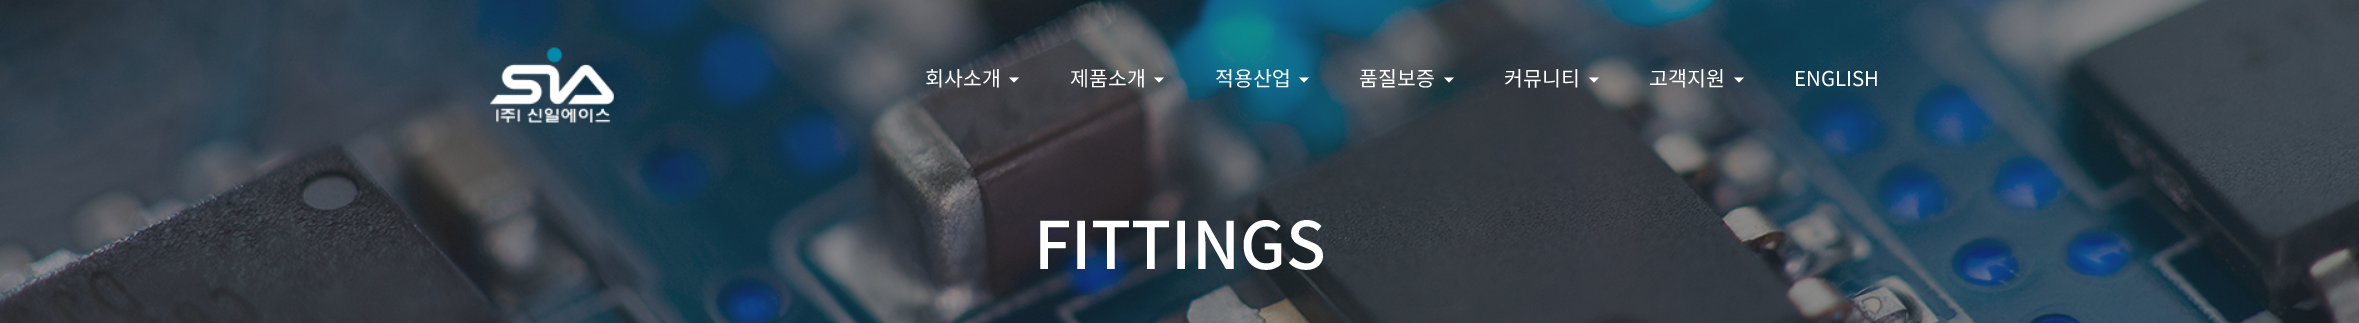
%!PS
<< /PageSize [2359 323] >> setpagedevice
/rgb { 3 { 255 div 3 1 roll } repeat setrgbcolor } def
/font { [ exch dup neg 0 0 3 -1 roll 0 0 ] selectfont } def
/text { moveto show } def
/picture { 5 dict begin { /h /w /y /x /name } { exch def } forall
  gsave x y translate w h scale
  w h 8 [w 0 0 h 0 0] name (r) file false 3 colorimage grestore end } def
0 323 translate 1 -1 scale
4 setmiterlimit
255 255 255 rgb
0 0 2359 323 rectfill
(img_01.rgb) 0 0 2359 323 picture
(img_02.rgb) 489 47 125 76 picture
1009 77.5 moveto 10 0 rlineto -5 5 rlineto closepath fill
1154 77.5 moveto 10 0 rlineto -5 5 rlineto closepath fill
1299 77.5 moveto 10 0 rlineto -5 5 rlineto closepath fill
1444 77.5 moveto 10 0 rlineto -5 5 rlineto closepath fill
1589 77.5 moveto 10 0 rlineto -5 5 rlineto closepath fill
1734 77.5 moveto 10 0 rlineto -5 5 rlineto closepath fill
/NotoSansKR-Regular 20.5 font
(회사소개) 925 86 text
(제품소개) 1070 86 text
(적용산업) 1215 86 text
(품질보증) 1359 86 text
(커뮤니티) 1504 86 text
(고객지원) 1649 86 text
(ENGLISH) 1794 86 text
/NotoSansKR-Medium 65.5 font
(FITTINGS) 1034 269 text
showpage
